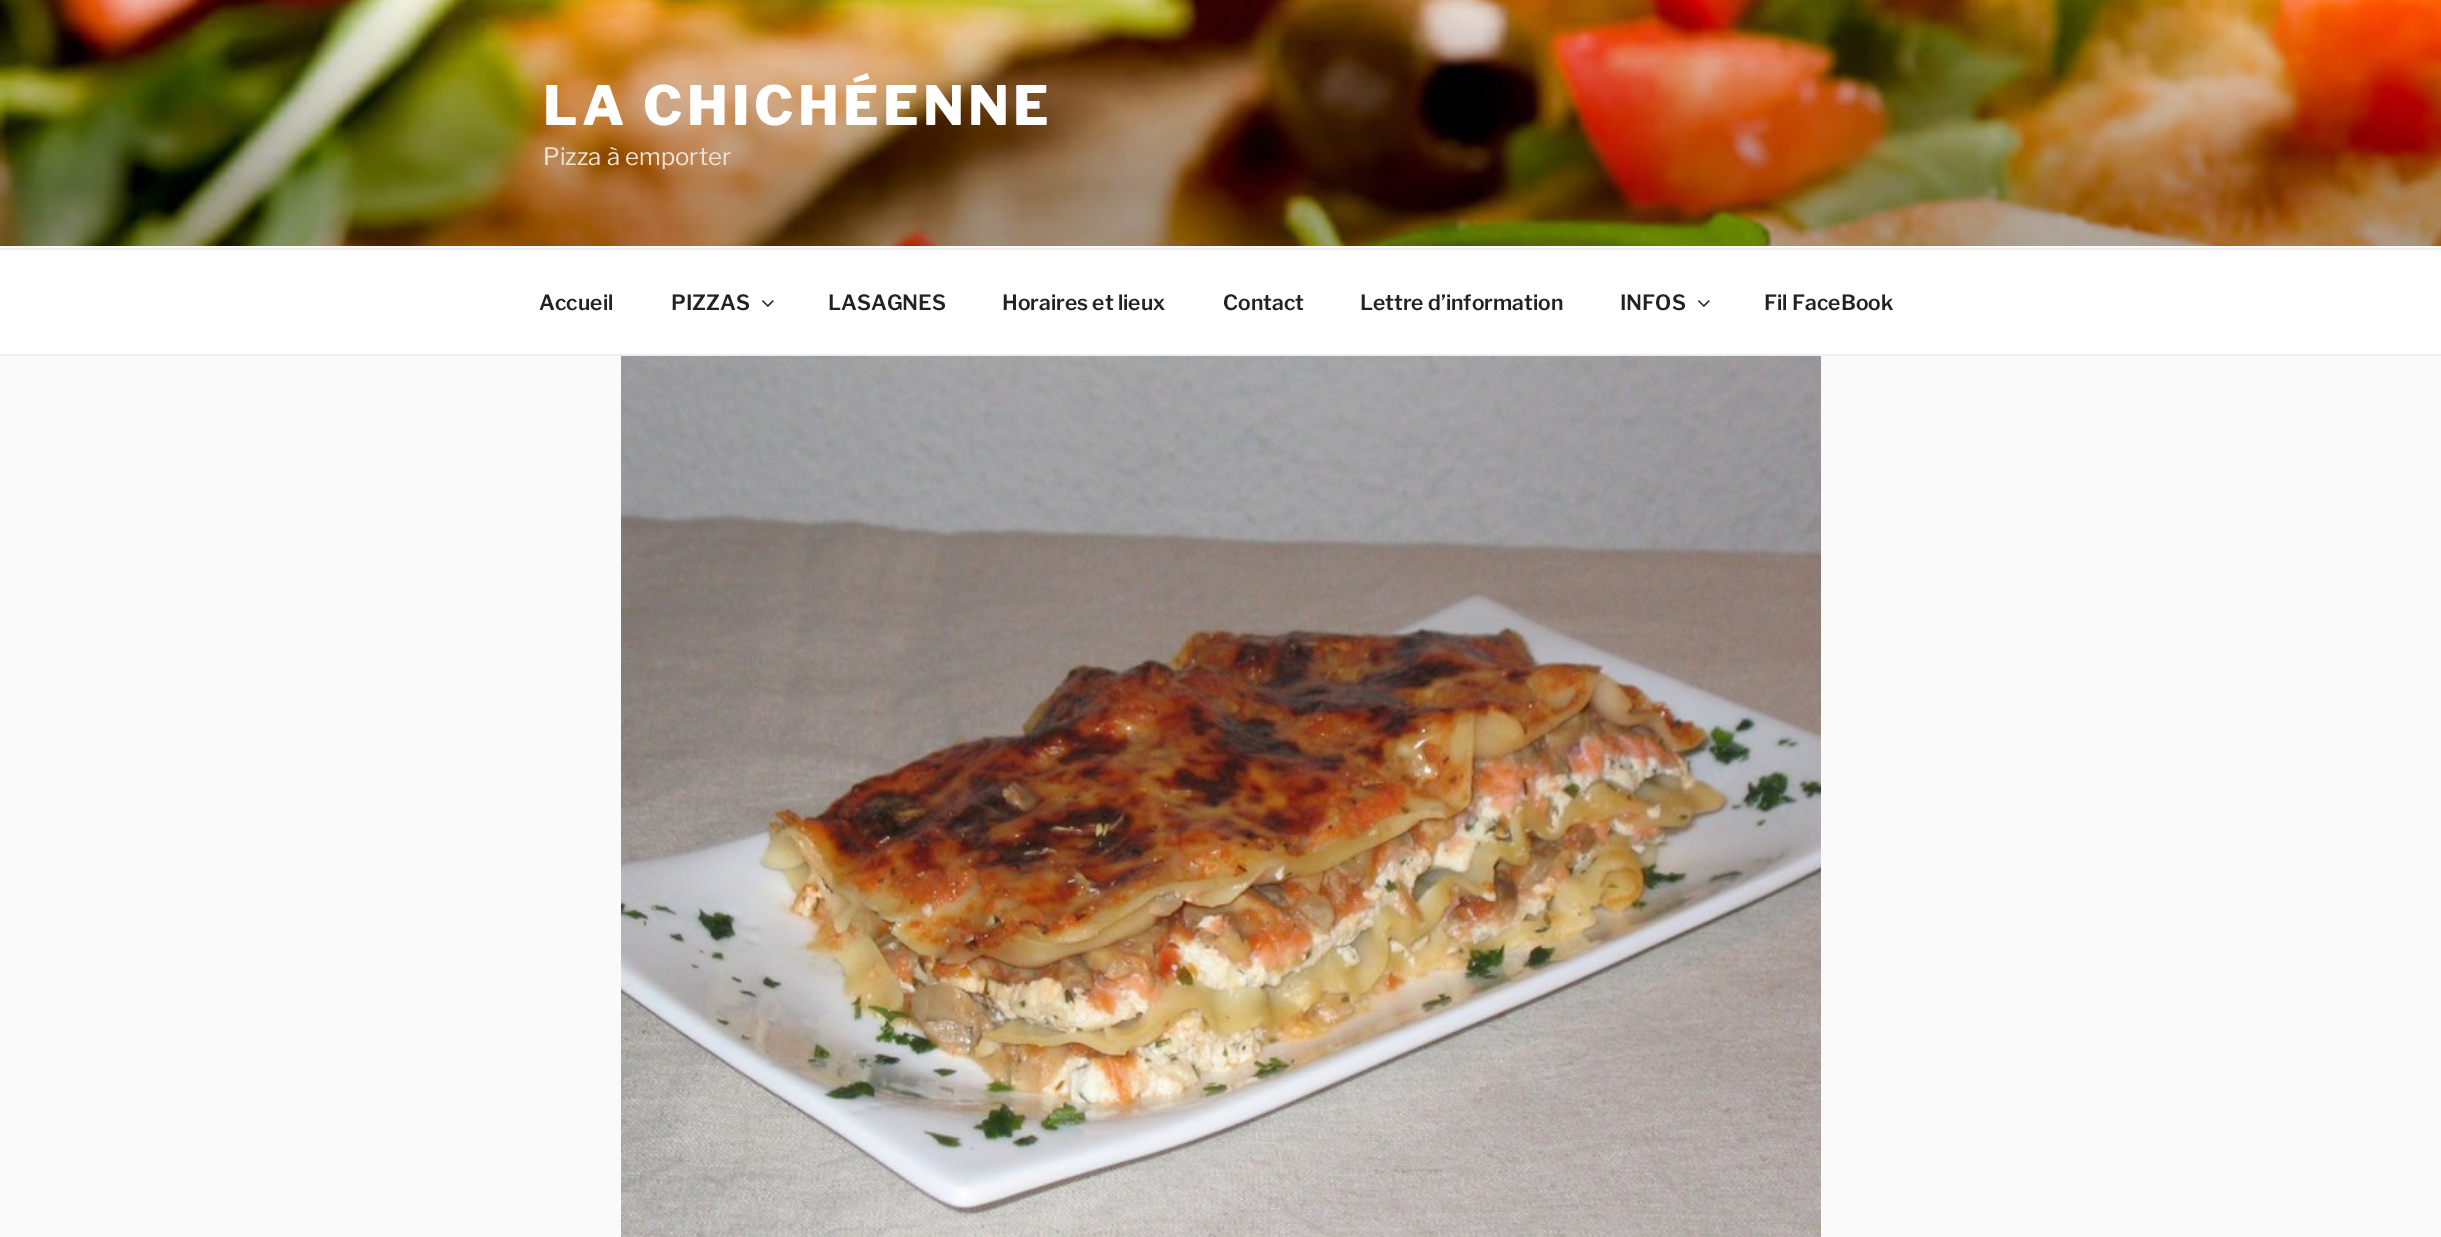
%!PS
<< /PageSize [2441 1237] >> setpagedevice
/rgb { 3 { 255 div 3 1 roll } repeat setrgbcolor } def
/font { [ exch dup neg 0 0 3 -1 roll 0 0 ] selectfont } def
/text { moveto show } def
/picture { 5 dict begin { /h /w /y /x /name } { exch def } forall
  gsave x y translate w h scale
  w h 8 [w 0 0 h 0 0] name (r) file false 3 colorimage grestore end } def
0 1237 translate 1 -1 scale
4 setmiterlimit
250 250 250 rgb
0 0 2441 1237 rectfill
(img_01.rgb) 0 0 2441 246 picture
255 255 255 rgb
0 250 2441 104 rectfill
238 238 238 rgb
0 248 2441 2 rectfill
0 354 2441 2 rectfill
(img_02.rgb) 762 300 12 7 picture
(img_02.rgb) 1698 300 12 7 picture
(img_03.rgb) 621 356 1200 881 picture
/LibreFranklin-ExtraBold 54 font
255 255 255 rgb
543 125 moveto 4.25 0 (LA CHICHÉENNE) ashow
/LibreFranklin-Regular 24 font
239 227 214 rgb
(Pizza à emporter) 543 165 text
/LibreFranklin-SemiBold 21 font
34 34 34 rgb
(Accueil) 539 310 text
(PIZZAS) 671 310 text
(LASAGNES) 828 310 text
(Horaires et lieux) 1002 310 text
(Contact) 1223 310 text
(Lettre d’information) 1360 310 text
(INFOS) 1620 310 text
(Fil FaceBook) 1764 310 text
showpage
